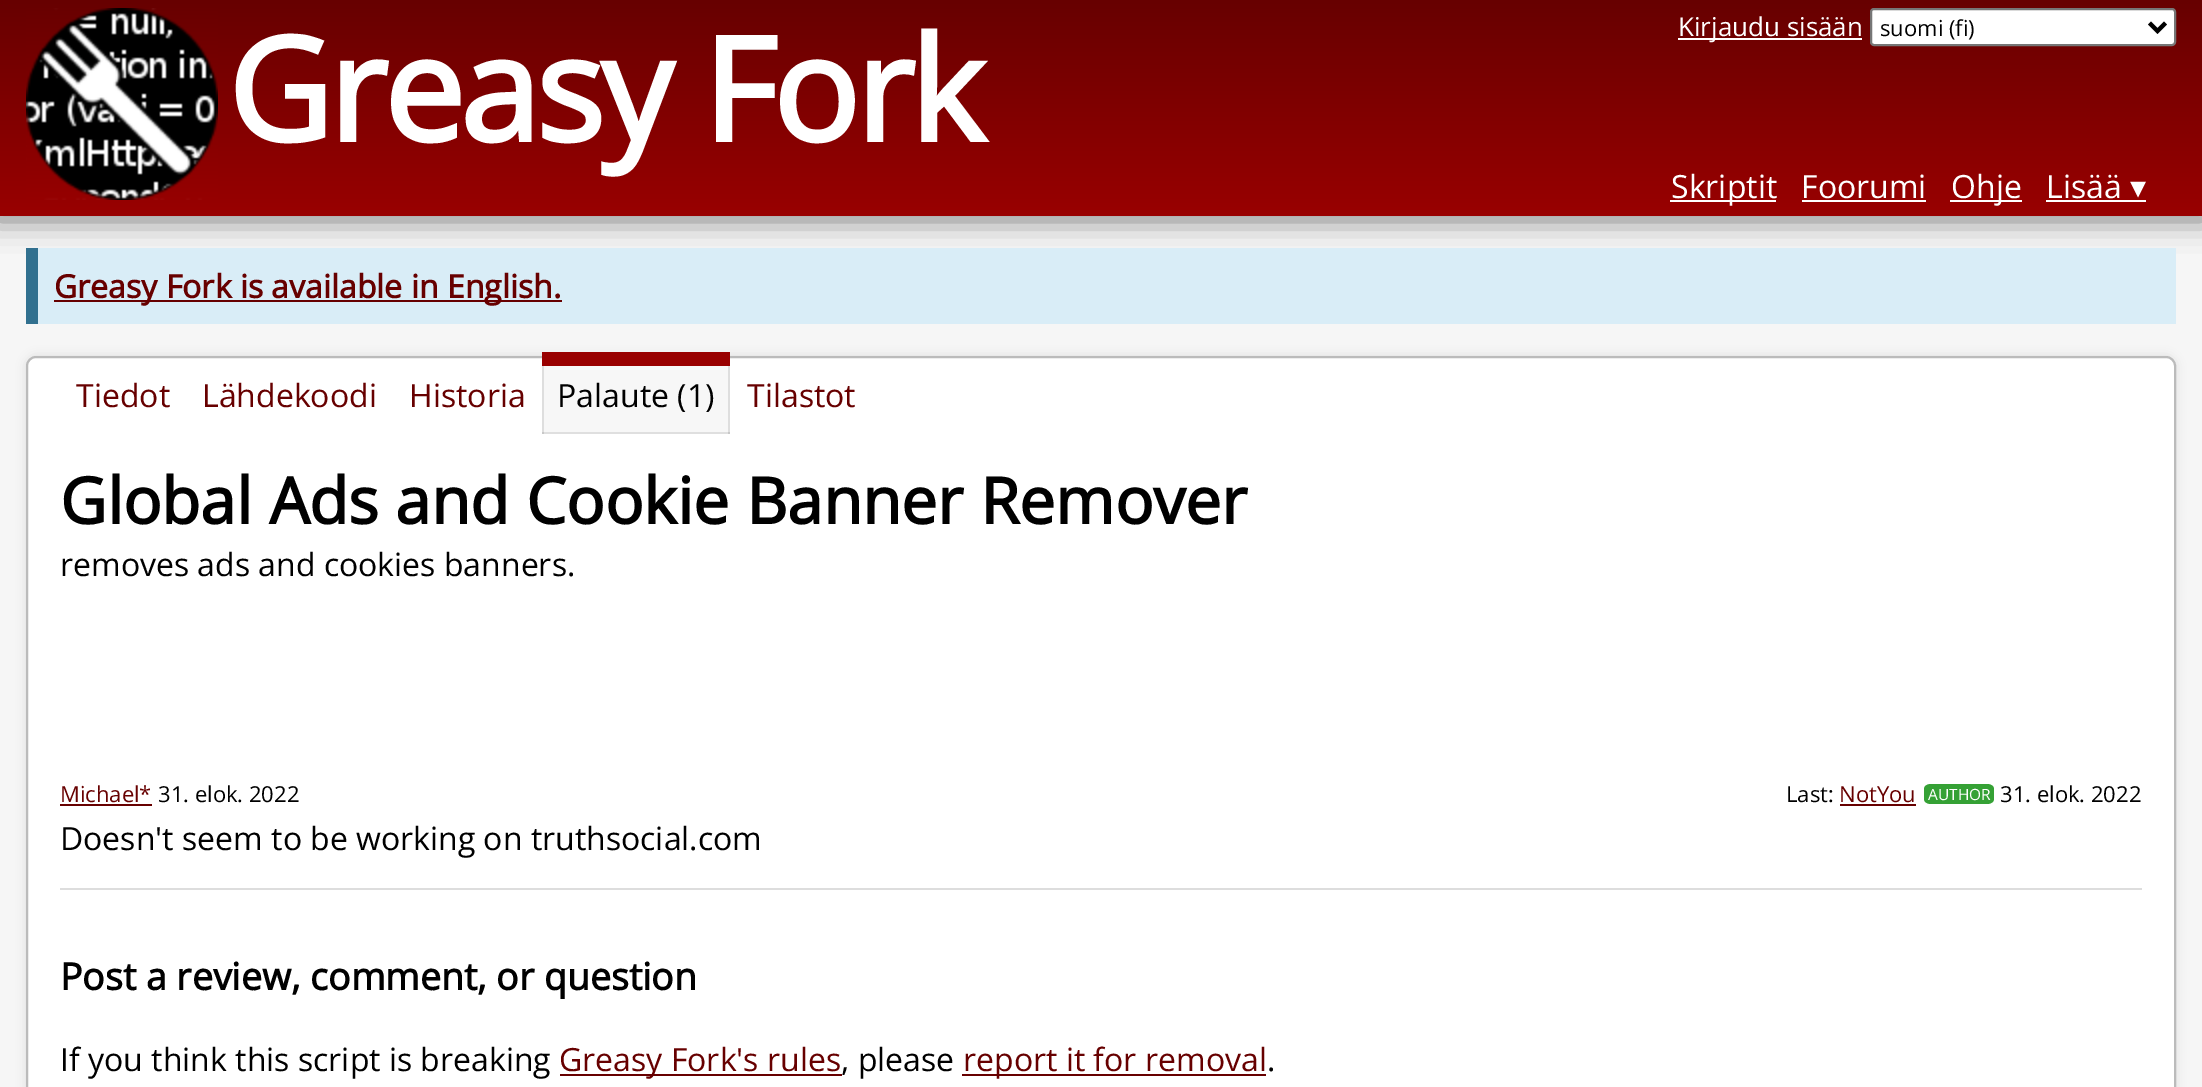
%!PS
<< /PageSize [2202 1087] /PageUsesTransparency true >> setpagedevice
/rgb { 3 { 255 div 3 1 roll } repeat setrgbcolor } def
/font { [ exch dup neg 0 0 3 -1 roll 0 0 ] selectfont } def
/text { moveto show } def
/alpha { dup .setfillconstantalpha .setstrokeconstantalpha } def
/roundrect { 5 dict begin { /r /h /w /y /x } { exch def } forall
  x r add y moveto x w add y 2 copy h add r arct x w add y h add x 1 index r arct
  x y h add x y r arct x y 2 copy exch w add exch r arct closepath end } def
/shadow { 12 dict begin { /a /b /q /h /w /y /x } { exch def } forall gsave /was 0 def
  9 -2 -9 { dup b mul 4 div /e exch def 1 sub .425 mul 2.718 exch exp 1 add a .99 .min exch div /now exch def
    1 1 now sub 1 was sub div sub alpha /was now def
    w h .min e 2 mul add 0 gt { x e sub y e sub w e 2 mul add h e 2 mul add
      q e add b .6 mul add w h .min 2 div e add .min 0 .max roundrect fill } if } for grestore end } def
/picture { 5 dict begin { /h /w /y /x /name } { exch def } forall
  gsave x y translate w h scale
  w h 8 [w 0 0 h 0 0] name (r) file false 3 colorimage grestore end } def
0 .pushpdf14devicefilter
0 1087 translate 1 -1 scale
4 setmiterlimit
246 246 246 rgb
0 0 2202 1087 rectfill
0 0 0 rgb
-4 -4 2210 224 0 15 0.5 shadow
gsave 0 0 moveto 2202 0 rlineto 0 216 rlineto -2202 0 rlineto closepath clip newpath
<< /ShadingType 2 /ColorSpace /DeviceRGB /Coords [1101 0 1101 216] /Extend [true true] /Function << /FunctionType 2 /Domain [0 1] /C0 [0.404 0 0] /C1 [0.6 0 0] /N 1 >> >> shfill grestore
(img_01.rgb) 26 8 192 192 picture
255 255 255 rgb
1678 38 184 2 rectfill
1871 9 304 36 3 roundrect gsave fill grestore
118 118 118 rgb
2 setlinewidth
stroke
0 0 0 rgb
4 setlinewidth
2149.5 23 moveto 8 8 rlineto 8 -8 rlineto stroke
255 255 255 rgb
1670 200 106 2 rectfill
1802 200 124 2 rectfill
1950 200 72 2 rectfill
2046 200 100 2 rectfill
217 237 247 rgb
38 248 2138 76 rectfill
49 112 143 rgb
26 248 12 76 rectfill
103 0 0 rgb
54 300 508 2 rectfill
221 221 221 rgb
26 356 2150 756 10 5 1 shadow
255 255 255 rgb
27 357 2148 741 9 roundrect gsave fill grestore
187 187 187 rgb
2 setlinewidth
stroke
0.03 alpha
0 0 0 rgb
542 366 188 66 rectfill
1 alpha
223 223 223 rgb
542 432 188 2 rectfill
0.1 alpha
0 0 0 rgb
728 366 2 68 rectfill
542 366 2 68 rectfill
1 alpha
153 0 0 rgb
542 352 188 14 rectfill
221 221 221 rgb
60 888 2082 2 rectfill
103 0 0 rgb
60 804 92 2 rectfill
1840 804 76 2 rectfill
53 161 53 rgb
1931 784 moveto 56 0 rlineto 4 0 7 2 7 5 rcurveto 0 10 rlineto 0 3 -3 5 -7 5 rcurveto -56 0 rlineto -4 0 -7 -2 -7 -5 rcurveto 0 -10 rlineto 0 -3 3 -5 7 -5 rcurveto closepath fill
103 0 0 rgb
560 1074 282 2 rectfill
962 1074 304 2 rectfill
/OpenSans-Bold 144 font
255 255 255 rgb
227 142 moveto -4 0 (Greasy Fork) ashow
/OpenSans-Regular 26 font
(Kirjaudu sisään) 1678 36 text
/OpenSans-Regular 22 font
0 0 0 rgb
(suomi \(fi\)) 1880 36 text
/OpenSans-Regular 32 font
255 255 255 rgb
(Skriptit) 1671 198 text
(Foorumi) 1801 198 text
(Ohje) 1951 198 text
(Lisää) 2046 198 text
/DejaVuSans-Regular 32 font
(▾) 2130 198 text
/OpenSans-Bold 32 font
103 0 0 rgb
(Greasy Fork is available in English.) 54 298 text
/OpenSans-Regular 32 font
(Tiedot) 76 407 text
(Lähdekoodi) 202 407 text
(Historia) 409 407 text
0 0 0 rgb
(Palaute \(1\)) 557 407 text
103 0 0 rgb
(Tilastot) 747 407 text
/OpenSans-Bold 64 font
0 0 0 rgb
(Global Ads and Cookie Banner Remover) 60 524 text
/OpenSans-Regular 32 font
(removes ads and cookies banners.) 60 576 text
/OpenSans-Regular 22 font
103 0 0 rgb
(Michael*) 60 802 text
0 0 0 rgb
(31. elok. 2022) 158 802 text
(Last:) 1786 802 text
103 0 0 rgb
(NotYou) 1839 802 text
/OpenSans-Regular 15.5 font
255 255 255 rgb
(AUTHOR) 1928 800 text
/OpenSans-Regular 22 font
0 0 0 rgb
(31. elok. 2022) 2000 802 text
/OpenSans-Regular 32 font
(Doesn't seem to be working on truthsocial.com) 60 850 text
/OpenSans-Bold 37.4 font
(Post a review, comment, or question) 60 990 text
/OpenSans-Regular 32 font
(If you think this script is breaking) 60 1071 text
103 0 0 rgb
(Greasy Fork's rules) 559 1071 text
0 0 0 rgb
(, please) 841 1071 text
103 0 0 rgb
(report it for removal) 963 1071 text
0 0 0 rgb
(.) 1267 1071 text
.poppdf14devicefilter showpage
